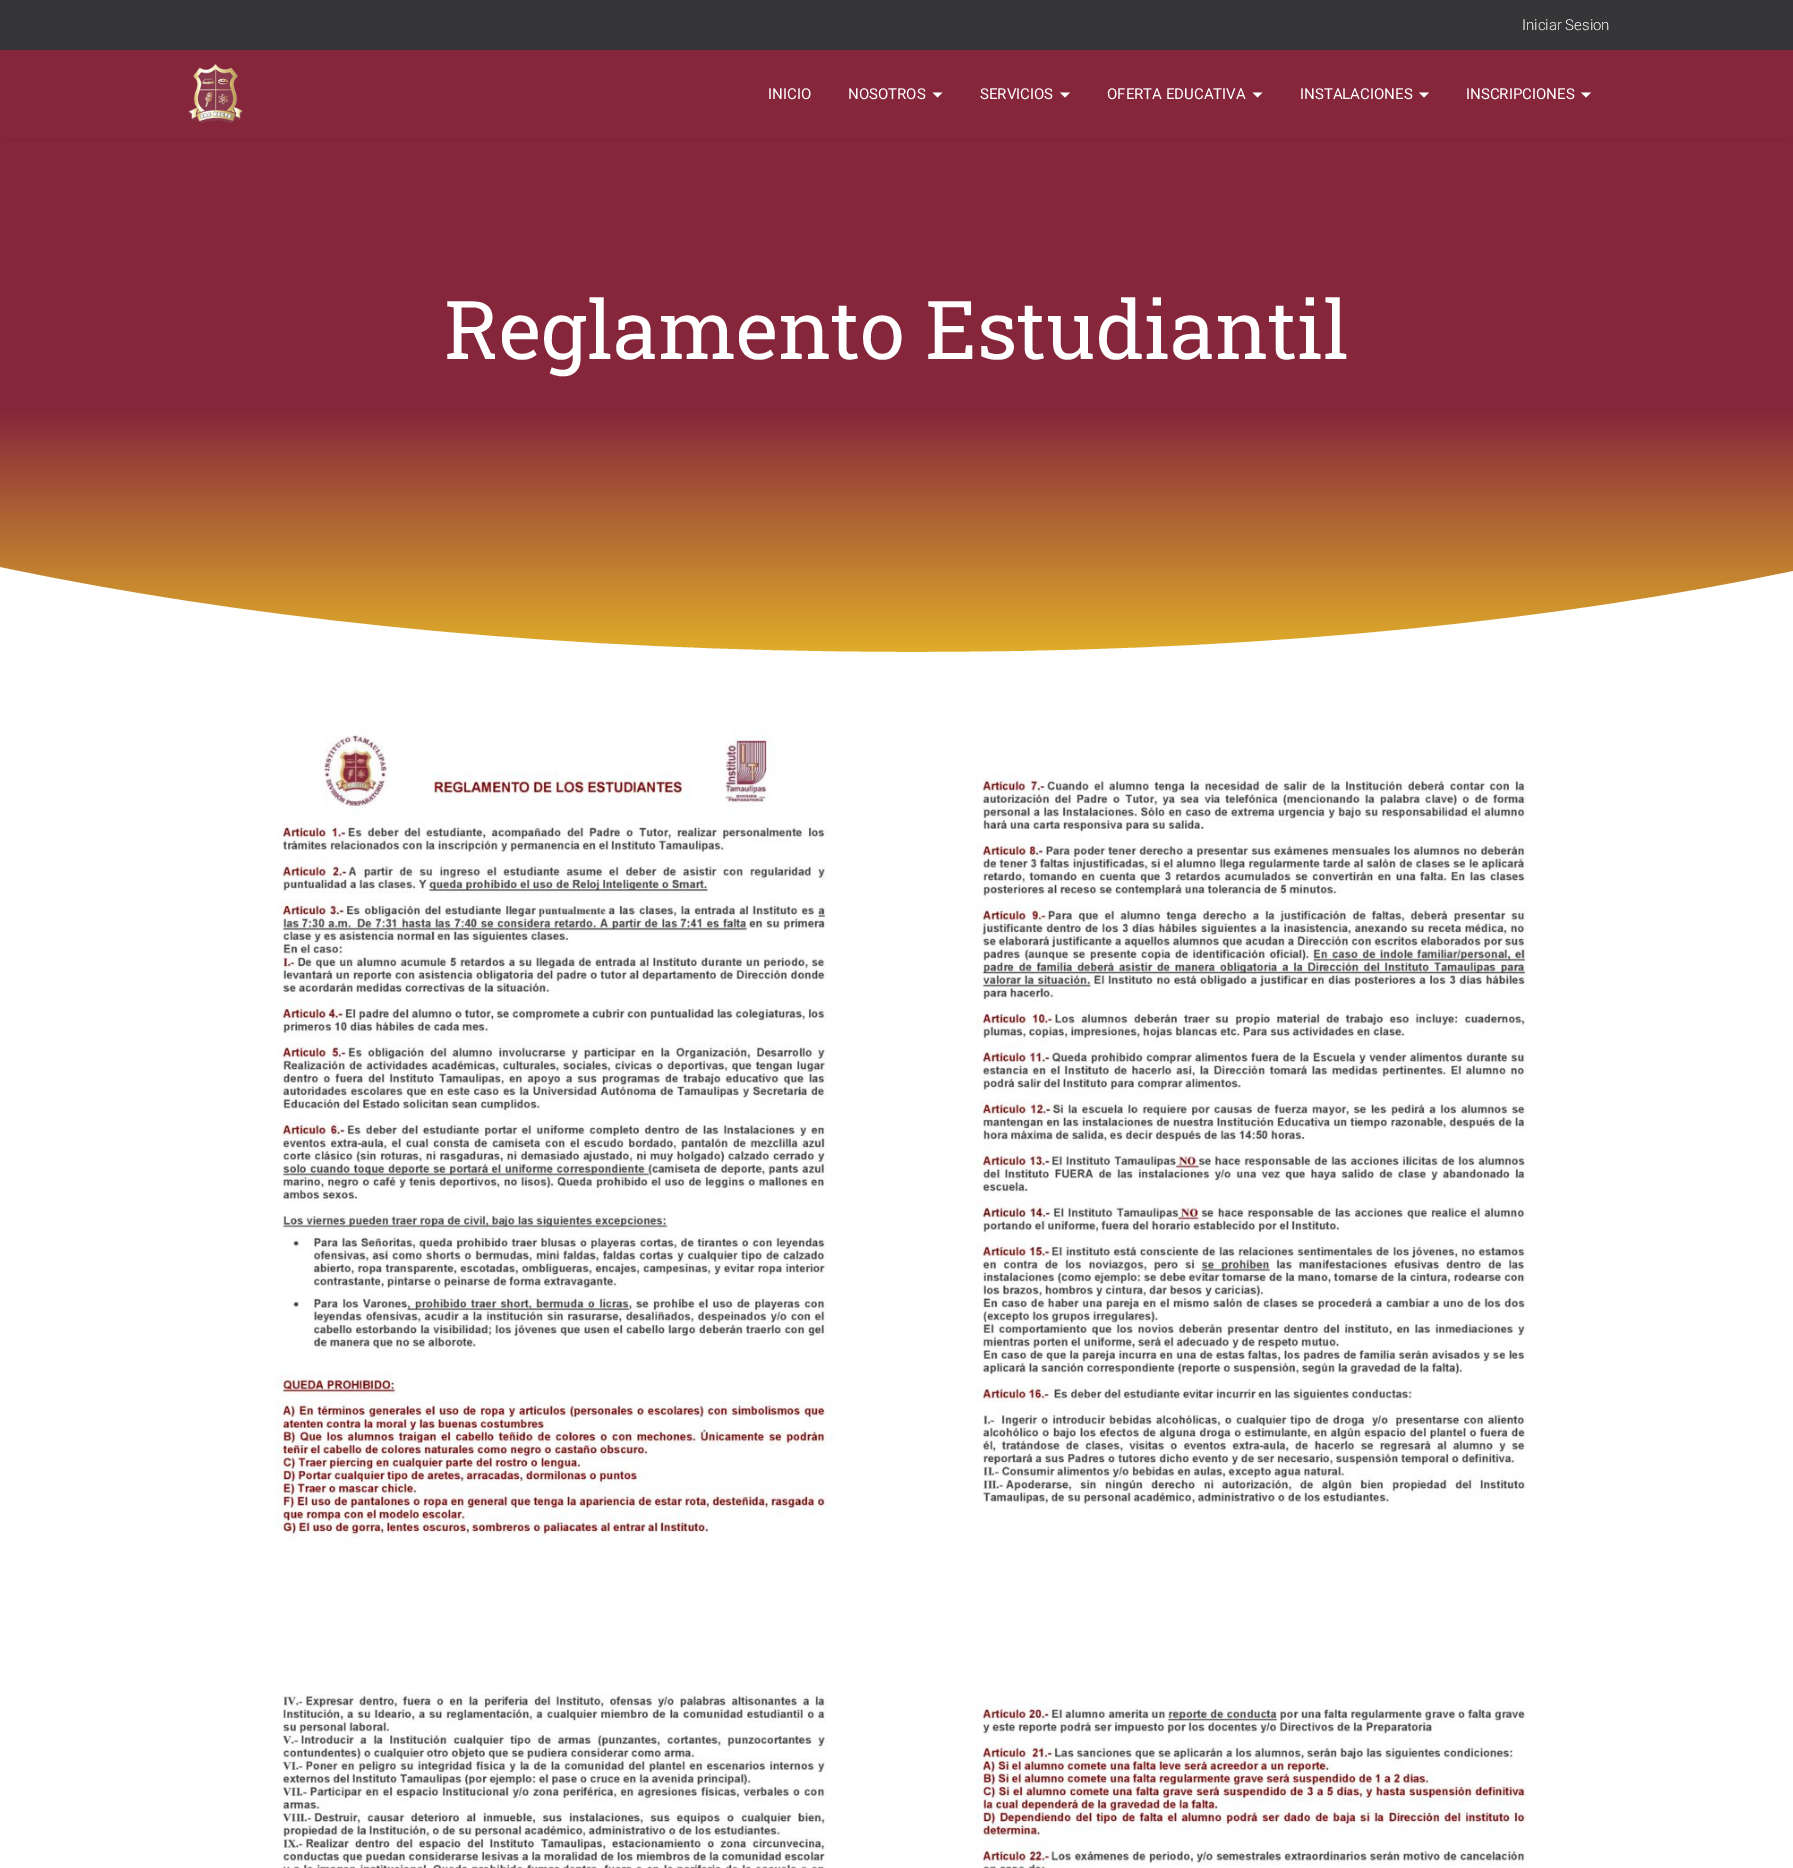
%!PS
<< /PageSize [1793 1868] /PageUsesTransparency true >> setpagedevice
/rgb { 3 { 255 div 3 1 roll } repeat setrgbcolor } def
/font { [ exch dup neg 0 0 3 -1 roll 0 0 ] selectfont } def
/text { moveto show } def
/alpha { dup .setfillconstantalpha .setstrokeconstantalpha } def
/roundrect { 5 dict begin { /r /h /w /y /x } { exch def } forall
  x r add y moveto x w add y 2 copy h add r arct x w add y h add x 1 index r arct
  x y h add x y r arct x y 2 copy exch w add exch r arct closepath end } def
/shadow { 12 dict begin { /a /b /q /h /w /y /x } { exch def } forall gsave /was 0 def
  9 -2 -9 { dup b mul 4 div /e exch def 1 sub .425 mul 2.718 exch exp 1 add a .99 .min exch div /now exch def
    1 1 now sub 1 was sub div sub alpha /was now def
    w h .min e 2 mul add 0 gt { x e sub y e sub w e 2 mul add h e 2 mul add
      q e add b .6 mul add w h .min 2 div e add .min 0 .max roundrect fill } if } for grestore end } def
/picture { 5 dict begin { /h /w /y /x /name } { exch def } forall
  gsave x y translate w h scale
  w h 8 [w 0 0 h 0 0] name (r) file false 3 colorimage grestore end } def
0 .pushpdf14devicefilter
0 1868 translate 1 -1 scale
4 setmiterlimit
54 53 55 rgb
0 0 1793 1868 rectfill
gsave 0 138 moveto 1793 0 rlineto 0 514 rlineto -1793 0 rlineto closepath clip newpath
<< /ShadingType 2 /ColorSpace /DeviceRGB /Coords [897 137 897 669] /Extend [true true] /Function << /FunctionType 3 /Domain [0 1] /Functions [<< /FunctionType 2 /Domain [0 1] /C0 [0.522 0.149 0.231] /C1 [0.522 0.149 0.231] /N 1 >> << /FunctionType 2 /Domain [0 1] /C0 [0.522 0.149 0.231] /C1 [0.902 0.714 0.161] /N 1 >>] /Bounds [0.51] /Encode [0 1 0 1] >> >> shfill grestore
0 0 0 rgb
8 59 1778 72 0 6 0.42 shadow
133 38 59 rgb
0 50 1793 88 rectfill
(img_01.rgb) 188 64 55 59 picture
255 255 255 rgb
932.5 92.5 moveto 10 0 rlineto -5 5 rlineto closepath fill
1060 92.5 moveto 10 0 rlineto -5 5 rlineto closepath fill
1252.5 92.5 moveto 10 0 rlineto -5 5 rlineto closepath fill
1419 92.5 moveto 10 0 rlineto -5 5 rlineto closepath fill
1581 92.5 moveto 10 0 rlineto -5 5 rlineto closepath fill
0 670 1793 1198 rectfill
897 652 moveto -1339 -4 -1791 -453 -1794 -570 rcurveto 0 588 rlineto 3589 0 rlineto 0 -582 rlineto 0 108 -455 569 -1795 564 rcurveto closepath fill
(img_02.rgb) 275 729 559 816 picture
(img_03.rgb) 975 771 552 738 picture
(img_04.rgb) 282 1694 545 174 picture
(img_05.rgb) 975 1701 552 167 picture
/Roboto-Light 15 font
(Iniciar Sesion) 1522 30 text
/Roboto-Regular 15 font
(INICIO) 768 99 text
(NOSOTROS) 848 99 text
(SERVICIOS) 980 99 text
(OFERTA EDUCATIVA) 1107 99 text
(INSTALACIONES) 1300 99 text
(INSCRIPCIONES) 1466 99 text
/RobotoSlab-Regular 81.25 font
(Reglamento Estudiantil) 444 359 text
.poppdf14devicefilter showpage
